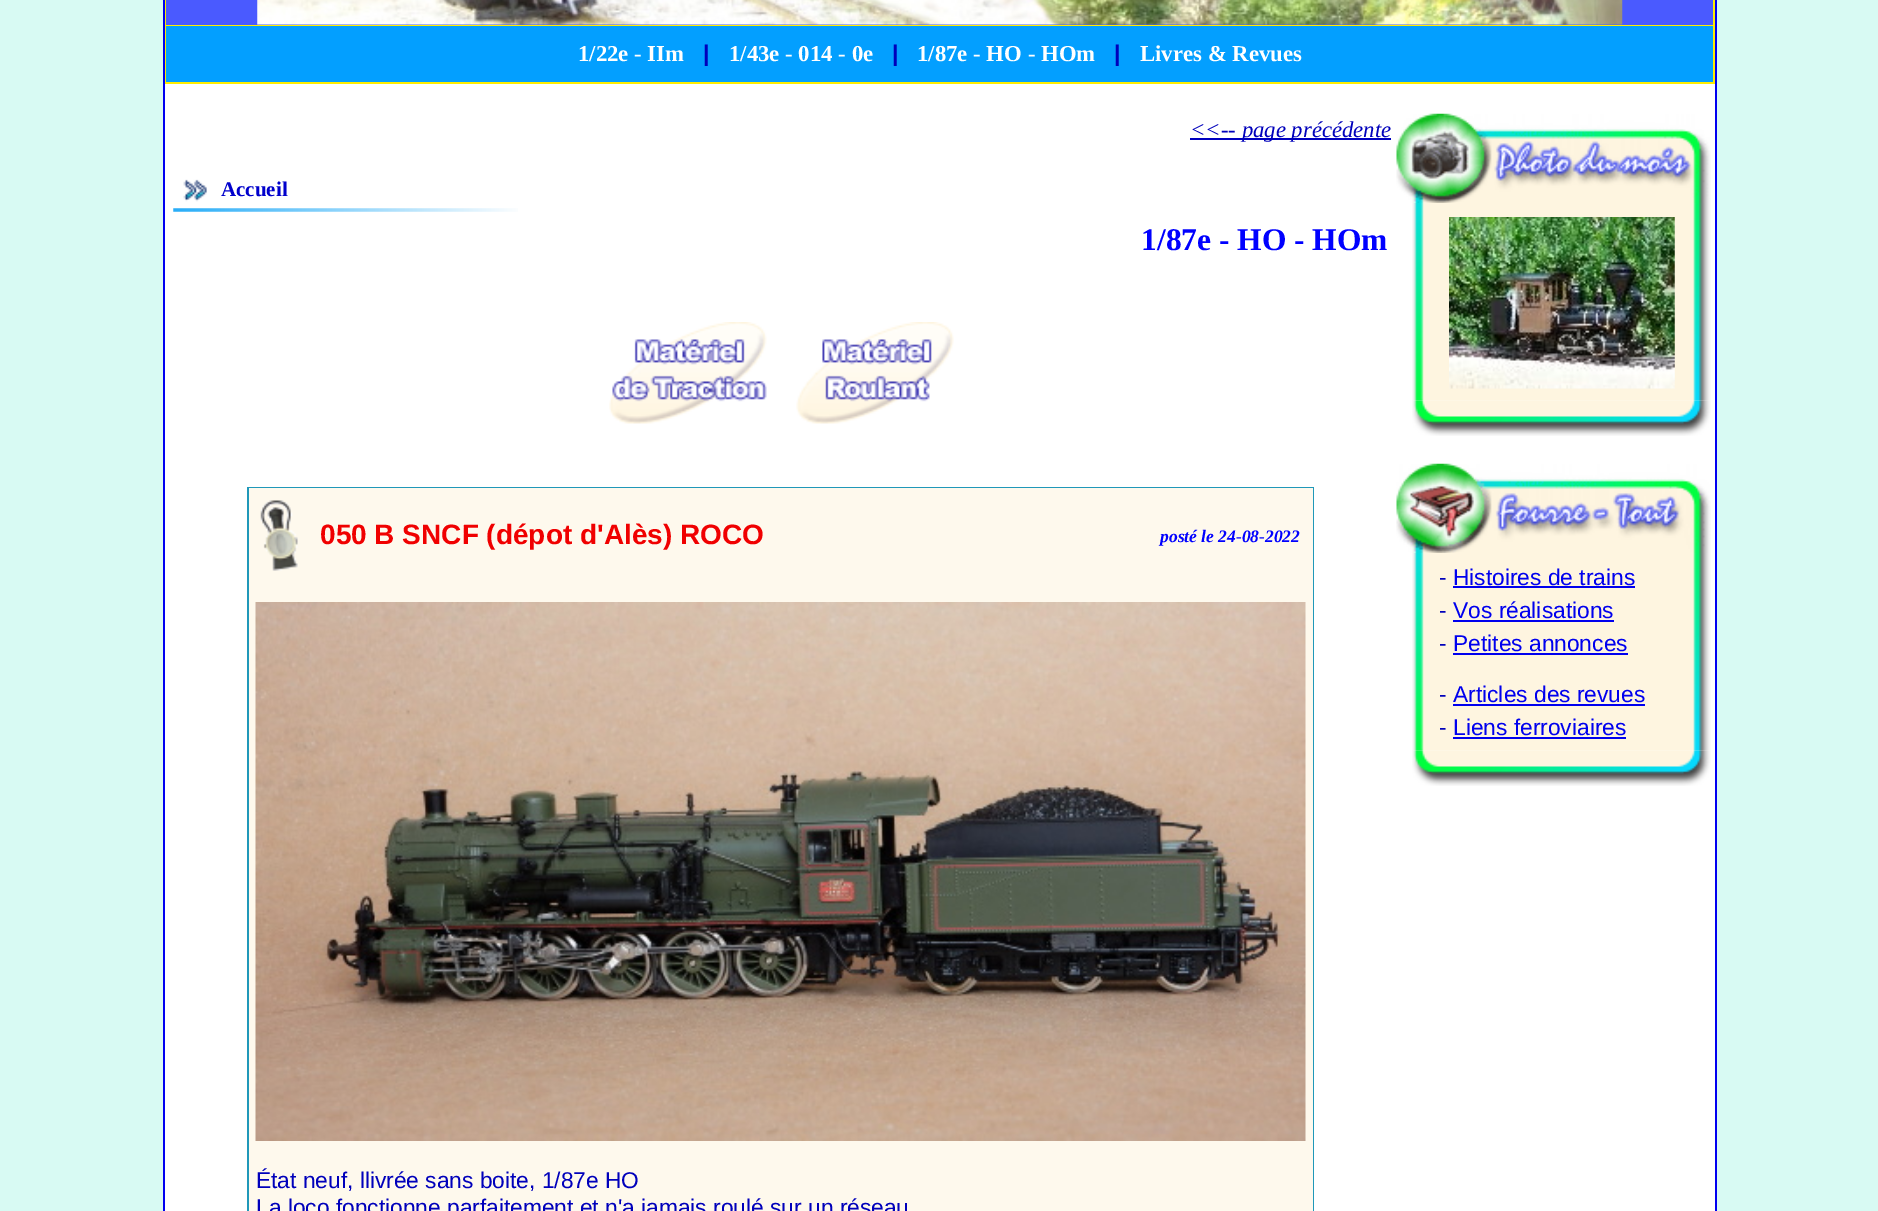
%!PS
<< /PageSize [1878 1211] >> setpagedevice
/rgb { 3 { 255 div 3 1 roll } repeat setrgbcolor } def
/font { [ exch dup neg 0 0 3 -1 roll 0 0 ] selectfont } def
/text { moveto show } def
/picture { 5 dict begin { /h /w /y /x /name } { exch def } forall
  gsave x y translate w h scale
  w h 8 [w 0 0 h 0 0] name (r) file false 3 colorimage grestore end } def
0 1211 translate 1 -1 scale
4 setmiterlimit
216 250 243 rgb
0 0 1878 1211 rectfill
0 0 240 rgb
163 0 1554 1211 rectfill
255 237 0 rgb
165 0 1550 84 rectfill
74 90 255 rgb
166 0 1547 25 rectfill
(img_01.rgb) 257 0 1366 25 picture
3 159 255 rgb
166 26 1547 56 rectfill
255 255 255 rgb
165 84 1550 1127 rectfill
0 0 192 rgb
1190 138 201 2 rectfill
(img_02.rgb) 183 179 24 23 picture
(img_03.rgb) 173 208 345 4 picture
(img_04.rgb) 609 322 158 102 picture
(img_05.rgb) 796 322 158 102 picture
32 152 185 rgb
247 487 1067 724 rectfill
254 249 237 rgb
249 488 1064 723 rectfill
(img_06.rgb) 260 500 38 71 picture
(img_07.rgb) 255 602 1051 539 picture
(img_08.rgb) 1396 113 315 90 picture
(img_09.rgb) 1412 203 299 198 picture
(img_10.rgb) 1449 217 226 172 picture
(img_11.rgb) 1412 400 299 36 picture
(img_12.rgb) 1396 463 315 90 picture
(img_09.rgb) 1412 553 299 198 picture
0 0 238 rgb
1453 586 182 2 rectfill
1453 620 161 2 rectfill
1453 653 175 2 rectfill
1453 704 192 2 rectfill
1453 737 173 2 rectfill
(img_11.rgb) 1412 750 299 36 picture
/LiberationSerif-Bold 22.75 font
255 255 255 rgb
(1/22e - IIm) 578 61 text
/LiberationSans-Bold 22.75 font
0 0 187 rgb
(|) 703 61 text
/LiberationSerif-Bold 22.75 font
255 255 255 rgb
(1/43e - 014 - 0e) 729 61 text
/LiberationSans-Bold 22.75 font
0 0 187 rgb
(|) 892 61 text
/LiberationSerif-Bold 22.75 font
255 255 255 rgb
(1/87e - HO - HOm) 917 61 text
/LiberationSans-Bold 22.75 font
0 0 187 rgb
(|) 1114 61 text
/LiberationSerif-Bold 22.75 font
255 255 255 rgb
(Livres & Revues) 1140 61 text
/LiberationSerif-Italic 22.75 font
0 0 187 rgb
(<<-- page précédente) 1190 137 text
/LiberationSerif-Bold 21 font
0 0 204 rgb
(Accueil) 221 196 text
/LiberationSerif-Bold 31.5 font
0 0 255 rgb
(1/87e - HO - HOm) 1141 250 text
/LiberationSans-Bold 28 font
240 0 0 rgb
(050 B SNCF \(dépot d'Alès\) ROCO) 320 544 text
/LiberationSerif-BoldItalic 17.5 font
0 0 255 rgb
(posté le 24-08-2022) 1160 542 text
/LiberationSans-Regular 22.75 font
0 0 187 rgb
(État neuf, llivrée sans boite, 1/87e HO) 256 1188 text
(La loco fonctionne parfaitement et n'a jamais roulé sur un réseau) 256 1215 text
(-) 1439 585 text
0 0 238 rgb
(Histoires de trains) 1453 585 text
0 0 187 rgb
(-) 1439 618 text
0 0 238 rgb
(Vos réalisations) 1453 618 text
0 0 187 rgb
(-) 1439 651 text
0 0 238 rgb
(Petites annonces) 1453 651 text
0 0 187 rgb
(-) 1439 702 text
0 0 238 rgb
(Articles des revues) 1453 702 text
0 0 187 rgb
(-) 1439 735 text
0 0 238 rgb
(Liens ferroviaires) 1453 735 text
showpage
